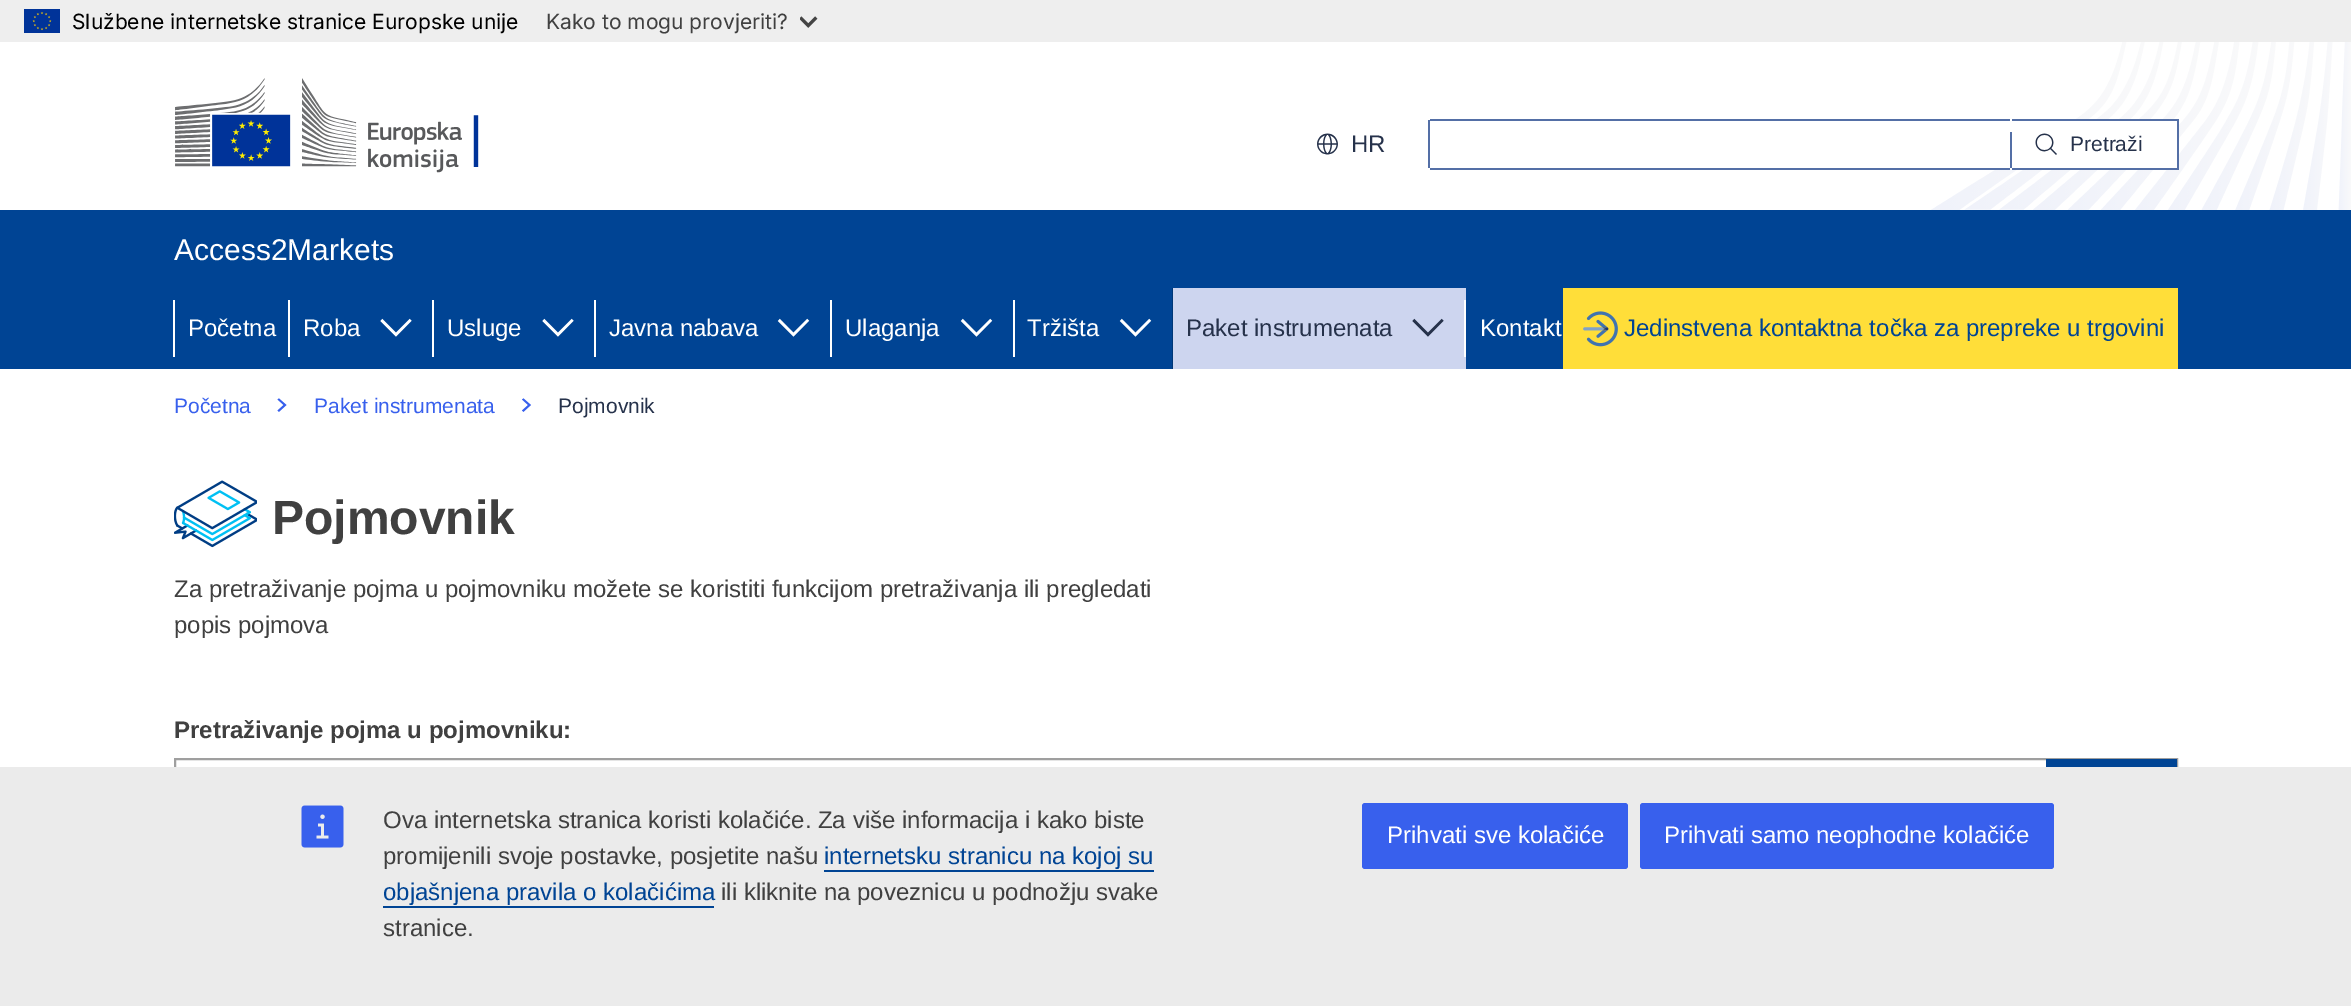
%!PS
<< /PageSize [2351 1006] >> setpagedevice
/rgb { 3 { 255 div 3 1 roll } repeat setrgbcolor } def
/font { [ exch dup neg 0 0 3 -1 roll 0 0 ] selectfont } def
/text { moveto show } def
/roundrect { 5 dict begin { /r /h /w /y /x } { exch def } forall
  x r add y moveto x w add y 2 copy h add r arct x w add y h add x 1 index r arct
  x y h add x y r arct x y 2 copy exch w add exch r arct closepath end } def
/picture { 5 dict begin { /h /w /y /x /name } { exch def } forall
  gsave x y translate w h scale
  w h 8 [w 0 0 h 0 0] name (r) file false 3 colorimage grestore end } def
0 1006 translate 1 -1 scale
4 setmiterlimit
255 255 255 rgb
0 0 2351 1006 rectfill
238 238 238 rgb
0 0 2351 42 rectfill
(img_01.rgb) 24 9 36 24 picture
(img_02.rgb) 800 16 18 12 picture
(img_03.rgb) 1931 42 420 168 picture
(img_04.rgb) 175 78 304 95 picture
(img_05.rgb) 1317 133 21 22 picture
255 255 255 rgb
1995 119 182 51 rectfill
84 111 166 rgb
1430 119 580 2 rectfill
1430 168 580 2 rectfill
1428 120 2 48 rectfill
2012 119 166 2 rectfill
2177 119 2 51 rectfill
2012 168 166 2 rectfill
2010 132 2 36 rectfill
(img_06.rgb) 2035 133 22 22 picture
0 68 148 rgb
0 210 2351 159 rectfill
255 255 255 rgb
173 300 2 57 rectfill
288 300 2 57 rectfill
(img_07.rgb) 380 318 32 19 picture
432 300 2 57 rectfill
(img_07.rgb) 542 318 32 19 picture
594 300 2 57 rectfill
(img_08.rgb) 777 318 33 19 picture
830 300 2 57 rectfill
(img_08.rgb) 960 318 33 19 picture
1013 300 2 57 rectfill
(img_08.rgb) 1119 318 33 19 picture
0 55 118 rgb
1172 288 1 81 rectfill
205 213 239 rgb
1173 288 293 81 rectfill
(img_09.rgb) 1412 318 32 19 picture
255 255 255 rgb
1464 300 2 57 rectfill
255 222 57 rgb
1563 288 615 81 rectfill
(img_10.rgb) 1583 311 35 36 picture
(img_11.rgb) 277 398 10 14 picture
(img_12.rgb) 522 398 9 14 picture
(img_13.rgb) 174 480 83 68 picture
159 159 159 rgb
2 setlinewidth
175 759 2002 73 rectstroke
0 68 148 rgb
2046 759 131 8 rectfill
235 235 235 rgb
0 767 2351 239 rectfill
(img_14.rgb) 301 805 43 43 picture
0 68 148 rgb
824 870 330 2 rectfill
383 906 331 2 rectfill
56 96 237 rgb
1362 803 266 66 3 roundrect fill
1640 803 414 66 3 roundrect fill
/Inter-Regular 21 font
0 0 0 rgb
(Službene internetske stranice Europske unije) 72 29 text
64 64 64 rgb
(Kako to mogu provjeriti?) 546 29 text
/LiberationSans-Regular 24 font
38 50 75 rgb
(HR) 1351 152 text
/LiberationSans-Regular 21 font
(Pretraži) 2070 151 text
/LiberationSans-Regular 30 font
255 255 255 rgb
(Access2Markets) 174 260 text
/LiberationSans-Regular 24 font
(Početna) 188 336 text
(Roba) 303 336 text
(Usluge) 447 336 text
(Javna nabava) 609 336 text
(Ulaganja) 845 336 text
(Tržišta) 1027 336 text
38 50 75 rgb
(Paket instrumenata) 1186 336 text
255 255 255 rgb
(Kontakt) 1480 336 text
0 68 148 rgb
(Jedinstvena kontaktna točka za prepreke u trgovini) 1624 336 text
/LiberationSans-Regular 21 font
56 96 237 rgb
(Početna) 174 413 text
(Paket instrumenata) 314 413 text
38 50 75 rgb
(Pojmovnik) 558 413 text
/LiberationSans-Bold 48 font
64 64 64 rgb
(Pojmovnik) 272 534 text
/LiberationSans-Regular 24 font
(Za pretraživanje pojma u pojmovniku možete se koristiti funkcijom pretraživanja ili pregledati) 174 597 text
(popis pojmova) 174 633 text
/LiberationSans-Bold 24 font
(Pretraživanje pojma u pojmovniku:) 174 738 text
/LiberationSans-Regular 24 font
(Ova internetska stranica koristi kolačiće. Za više informacija i kako biste) 383 828 text
(promijenili svoje postavke, posjetite našu) 383 864 text
0 68 148 rgb
(internetsku stranicu na kojoj su) 824 864 text
(objašnjena pravila o kolačićima) 383 900 text
64 64 64 rgb
(ili kliknite na poveznicu u podnožju svake) 721 900 text
(stranice.) 383 936 text
255 255 255 rgb
(Prihvati sve kolačiće) 1387 843 text
(Prihvati samo neophodne kolačiće) 1664 843 text
showpage
